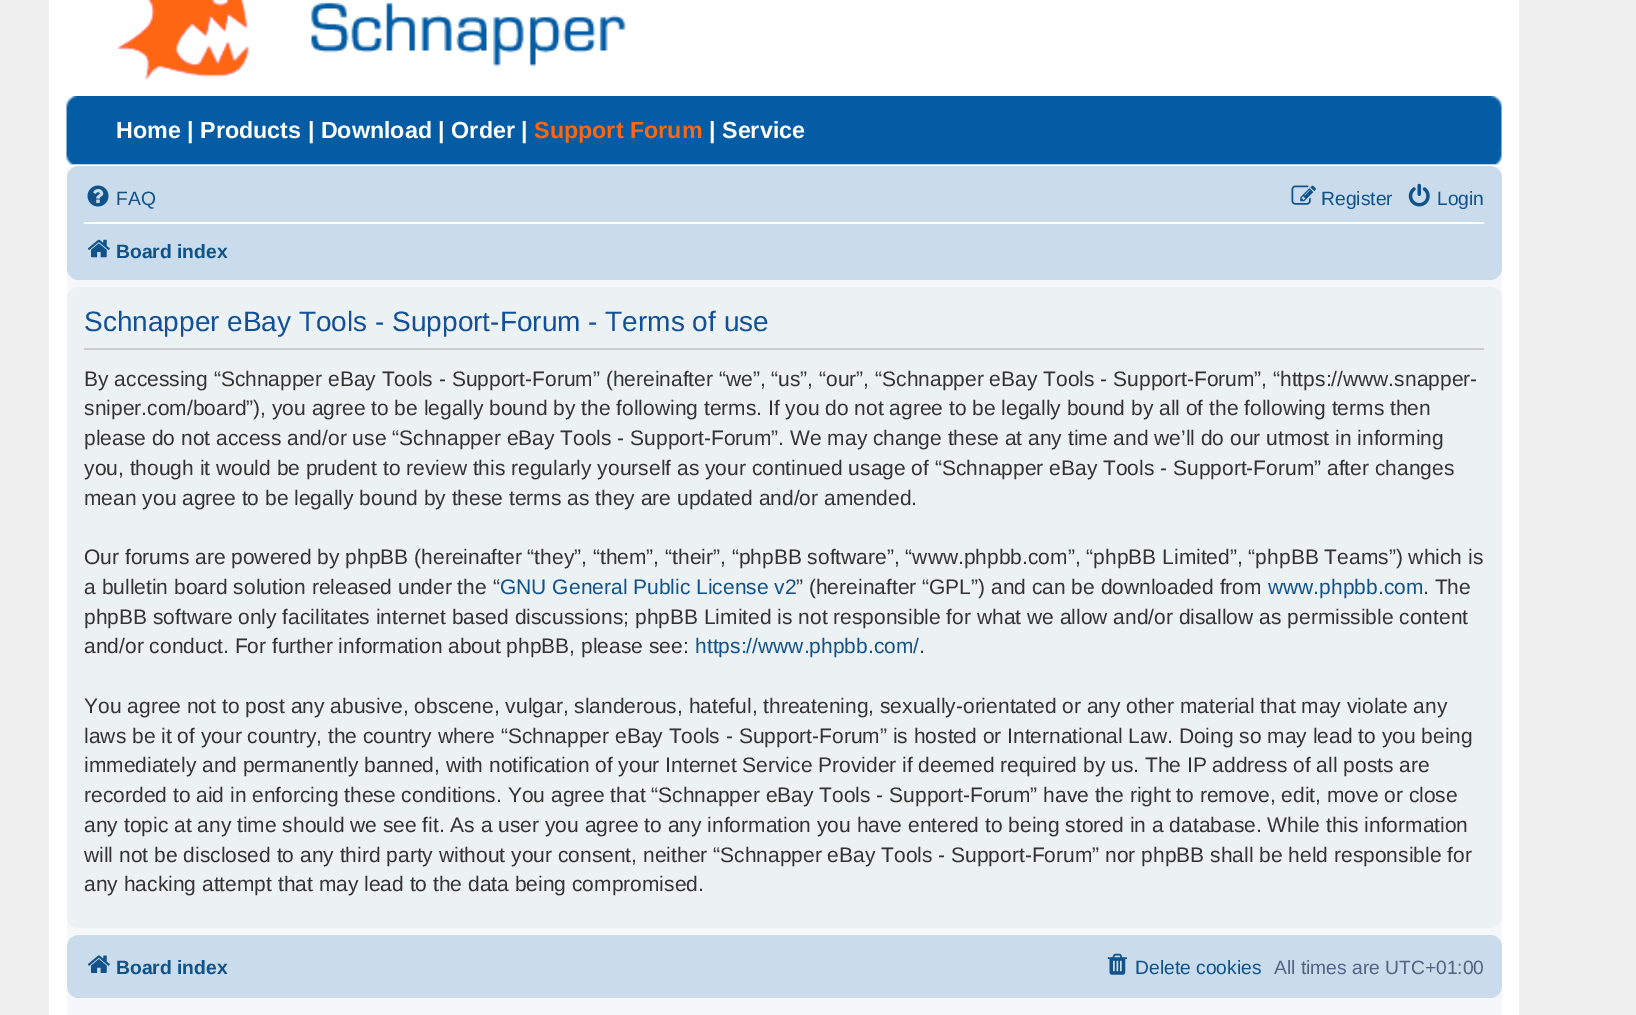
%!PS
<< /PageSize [1636 1015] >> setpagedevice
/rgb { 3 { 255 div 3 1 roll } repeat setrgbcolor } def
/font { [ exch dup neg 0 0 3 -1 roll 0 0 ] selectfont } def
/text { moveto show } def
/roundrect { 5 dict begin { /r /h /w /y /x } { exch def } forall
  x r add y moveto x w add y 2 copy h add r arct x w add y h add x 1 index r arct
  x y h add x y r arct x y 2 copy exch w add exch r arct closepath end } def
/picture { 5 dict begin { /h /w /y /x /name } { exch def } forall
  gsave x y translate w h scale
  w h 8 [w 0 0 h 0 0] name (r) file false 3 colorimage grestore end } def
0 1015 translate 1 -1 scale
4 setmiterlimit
240 240 240 rgb
0 0 1636 1015 rectfill
245 247 250 rgb
67 96 1435 919 rectfill
255 255 255 rgb
1502 0 17 1015 rectfill
49 0 18 1015 rectfill
67 0 1435 96 rectfill
(img_01.rgb) 117 0 509 80 picture
(img_02.rgb) 66 96 1436 69 picture
67 165 1435 2 rectfill
202 220 235 rgb
67 166 1435 114 12 roundrect fill
(img_03.rgb) 87 185 22 22 picture
(img_04.rgb) 1291 185 25 20 picture
(img_05.rgb) 1408 183 22 24 picture
255 255 255 rgb
84 222 1400 2 rectfill
(img_06.rgb) 87 239 23 19 picture
236 241 243 rgb
67 287 1435 641 12 roundrect fill
204 204 204 rgb
84 348 1400 2 rectfill
202 220 235 rgb
67 935 1435 63 12 roundrect fill
(img_07.rgb) 87 955 23 18 picture
(img_08.rgb) 1107 953 20 22 picture
/LiberationSans-Bold 23.3 font
255 255 255 rgb
(Home | Products | Download | Order |) 116 138 text
255 102 18 rgb
(Support Forum) 534 138 text
255 255 255 rgb
(| Service) 709 138 text
/LiberationSans-Regular 19.25 font
16 82 137 rgb
(FAQ) 116 205 text
(Register) 1321 205 text
(Login) 1437 205 text
/LiberationSans-Bold 19.25 font
(Board index) 116 258 text
/LiberationSans-Regular 28 font
17 80 152 rgb
(Schnapper eBay Tools - Support-Forum - Terms of use) 84 331 text
/LiberationSans-Regular 21 font
51 51 51 rgb
(By accessing “Schnapper eBay Tools - Support-Forum” \(hereinafter “we”, “us”, “our”, “Schnapper eBay Tools - Support-Forum”, “https://www.snapper-) 84 386 text
(sniper.com/board”\), you agree to be legally bound by the following terms. If you do not agree to be legally bound by all of the following terms then) 84 415 text
(please do not access and/or use “Schnapper eBay Tools - Support-Forum”. We may change these at any time and we’ll do our utmost in informing) 84 445 text
(you, though it would be prudent to review this regularly yourself as your continued usage of “Schnapper eBay Tools - Support-Forum” after changes) 84 475 text
(mean you agree to be legally bound by these terms as they are updated and/or amended.) 84 505 text
(Our forums are powered by phpBB \(hereinafter “they”, “them”, “their”, “phpBB software”, “www.phpbb.com”, “phpBB Limited”, “phpBB Teams”\) which is) 84 564 text
(a bulletin board solution released under the “) 84 594 text
16 82 137 rgb
(GNU General Public License v2) 500 594 text
51 51 51 rgb
(” \(hereinafter “GPL”\) and can be downloaded from) 796 594 text
16 82 137 rgb
(www.phpbb.com) 1268 594 text
51 51 51 rgb
(. The) 1423 594 text
(phpBB software only facilitates internet based discussions; phpBB Limited is not responsible for what we allow and/or disallow as permissible content) 84 624 text
(and/or conduct. For further information about phpBB, please see:) 84 653 text
16 82 137 rgb
(https://www.phpbb.com/) 695 653 text
51 51 51 rgb
(.) 919 653 text
(You agree not to post any abusive, obscene, vulgar, slanderous, hateful, threatening, sexually-orientated or any other material that may violate any) 84 713 text
(laws be it of your country, the country where “Schnapper eBay Tools - Support-Forum” is hosted or International Law. Doing so may lead to you being) 84 743 text
(immediately and permanently banned, with notification of your Internet Service Provider if deemed required by us. The IP address of all posts are) 84 772 text
(recorded to aid in enforcing these conditions. You agree that “Schnapper eBay Tools - Support-Forum” have the right to remove, edit, move or close) 84 802 text
(any topic at any time should we see fit. As a user you agree to any information you have entered to being stored in a database. While this information) 84 832 text
(will not be disclosed to any third party without your consent, neither “Schnapper eBay Tools - Support-Forum” nor phpBB shall be held responsible for) 84 862 text
(any hacking attempt that may lead to the data being compromised.) 84 891 text
/LiberationSans-Bold 19.25 font
16 82 137 rgb
(Board index) 116 974 text
/LiberationSans-Regular 19.25 font
(Delete cookies) 1135 974 text
83 100 130 rgb
(All times are UTC+01:00) 1274 974 text
showpage
